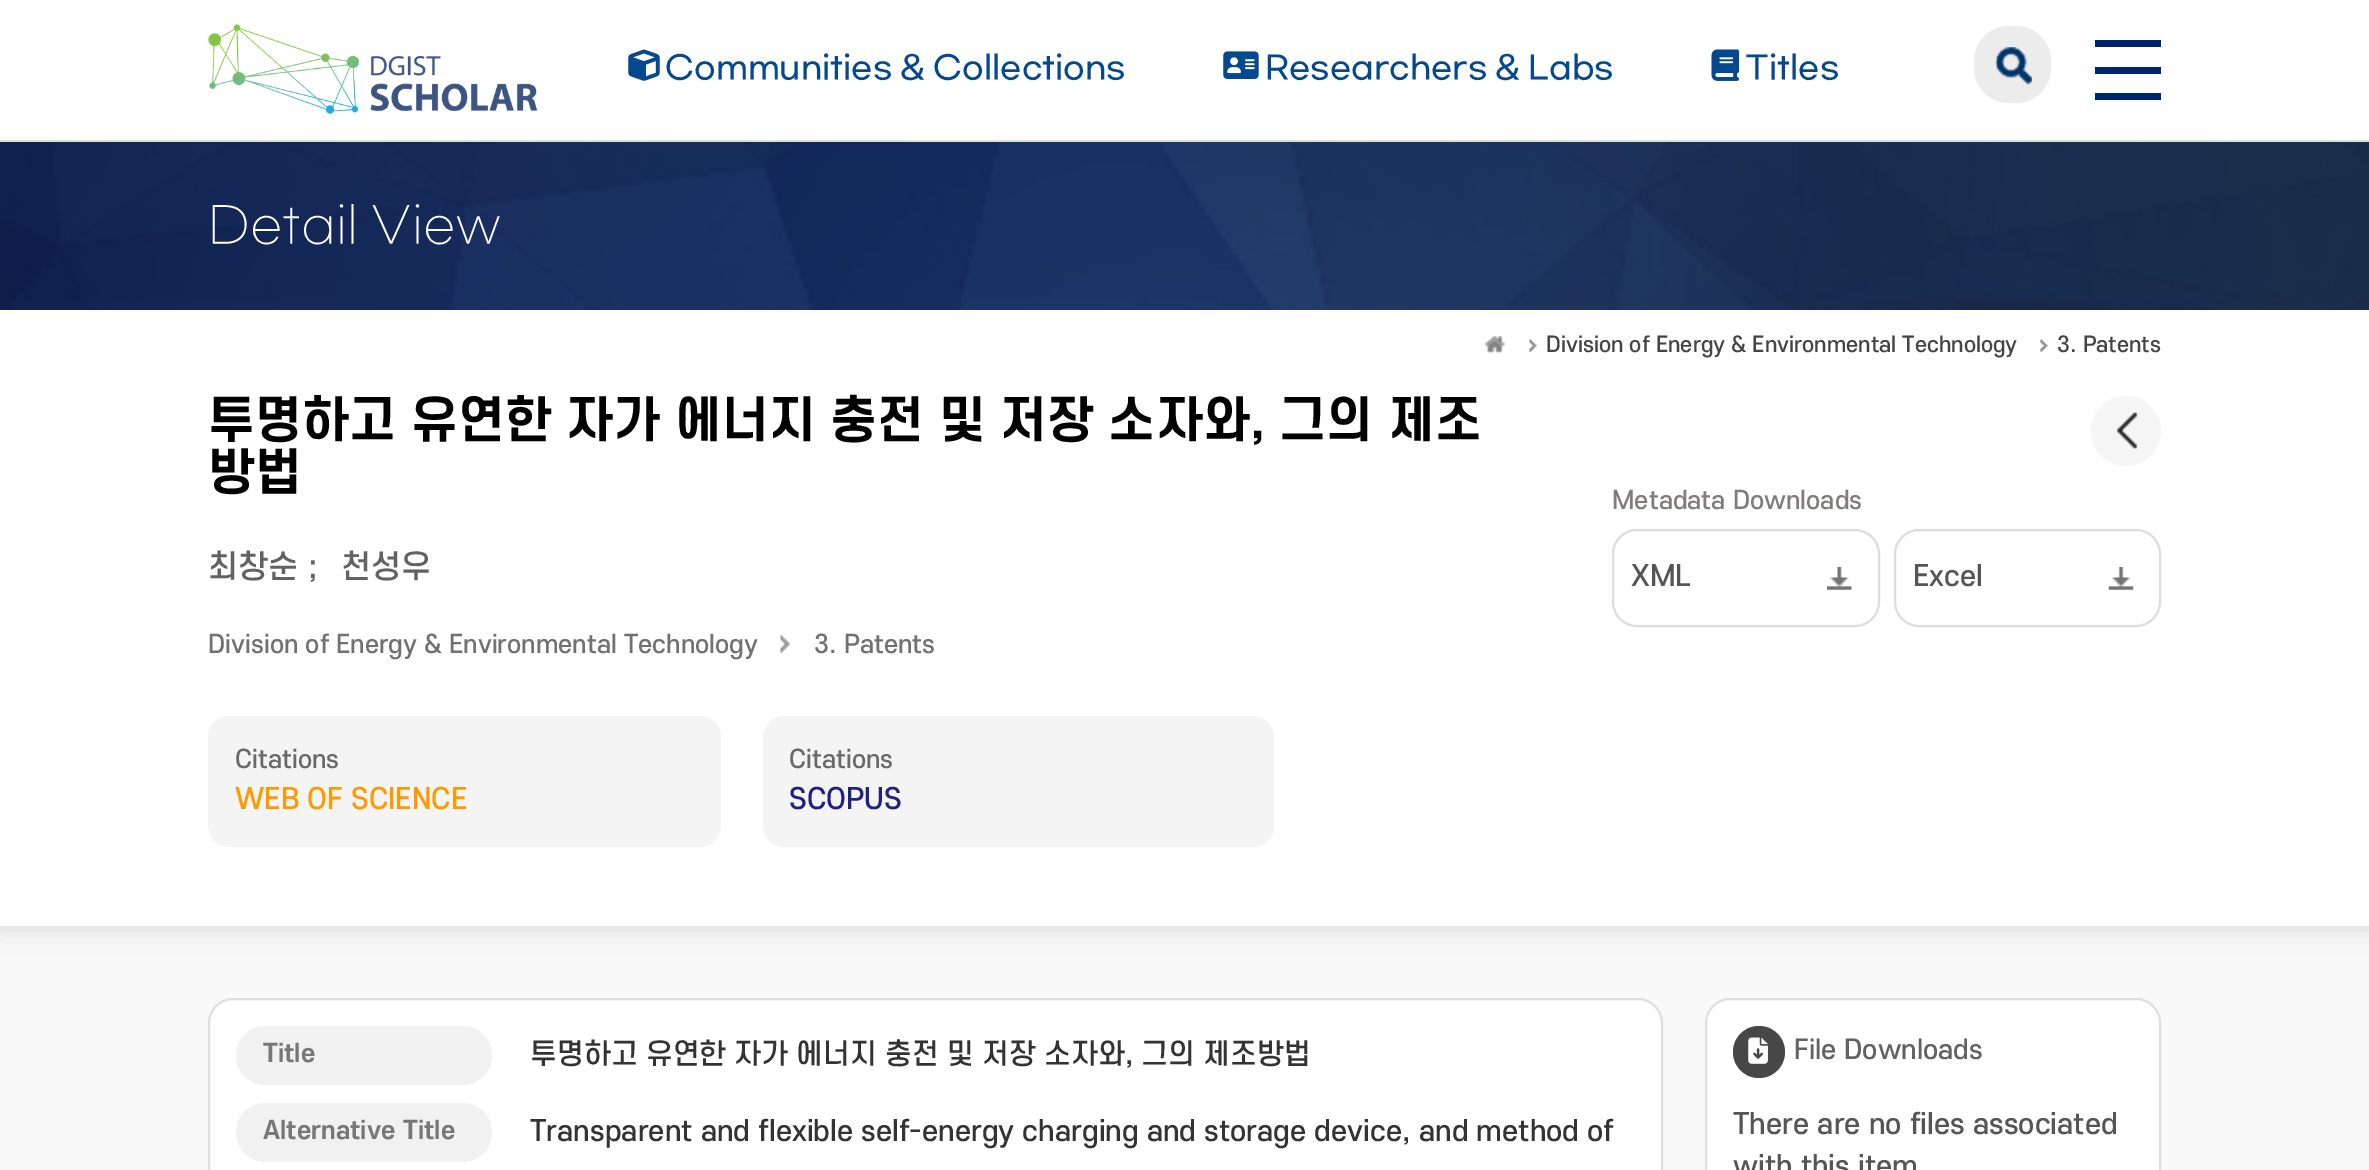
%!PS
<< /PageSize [2369 1170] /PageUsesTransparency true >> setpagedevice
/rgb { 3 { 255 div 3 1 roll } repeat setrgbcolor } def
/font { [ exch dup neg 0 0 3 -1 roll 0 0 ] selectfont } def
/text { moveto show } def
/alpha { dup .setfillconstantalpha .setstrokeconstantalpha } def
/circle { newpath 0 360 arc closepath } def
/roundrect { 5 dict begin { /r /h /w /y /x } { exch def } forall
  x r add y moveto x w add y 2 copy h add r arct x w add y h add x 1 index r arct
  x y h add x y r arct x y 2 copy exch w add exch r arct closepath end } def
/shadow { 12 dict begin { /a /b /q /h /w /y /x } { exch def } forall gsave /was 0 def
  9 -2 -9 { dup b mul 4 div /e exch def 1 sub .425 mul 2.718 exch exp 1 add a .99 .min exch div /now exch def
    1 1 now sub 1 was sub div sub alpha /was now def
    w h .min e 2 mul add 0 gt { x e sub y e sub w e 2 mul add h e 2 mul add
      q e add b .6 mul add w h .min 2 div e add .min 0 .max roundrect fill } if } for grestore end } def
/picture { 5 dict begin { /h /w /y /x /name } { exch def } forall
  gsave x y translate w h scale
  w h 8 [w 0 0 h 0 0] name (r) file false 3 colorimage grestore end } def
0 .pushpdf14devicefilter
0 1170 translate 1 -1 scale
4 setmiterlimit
249 249 249 rgb
0 0 2369 1170 rectfill
255 255 255 rgb
0 0 2369 140 rectfill
221 221 221 rgb
0 140 2369 2 rectfill
(img_01.rgb) 208 24 330 90 picture
(img_02.rgb) 628 49 32 32 picture
(img_03.rgb) 1223 51 36 28 picture
(img_04.rgb) 1711 49 29 32 picture
236 236 236 rgb
1974 26 77 77 35 roundrect fill
(img_05.rgb) 1995 47 37 38 picture
0 37 108 rgb
2095 40 66 7 rectfill
2095 67 66 7 rectfill
2095 93 66 7 rectfill
(img_06.rgb) 0 142 2369 168 picture
72 72 72 rgb
0 313 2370 616 0 12 0.2 shadow
255 255 255 rgb
0 310 2369 616 rectfill
(img_07.rgb) 1484 336 21 18 picture
(img_08.rgb) 1529 339 8 13 picture
(img_08.rgb) 2040 339 8 13 picture
(img_09.rgb) 780 635 10 18 picture
244 244 244 rgb
208 716 513 131 21 roundrect fill
763 716 511 131 21 roundrect fill
245 245 245 rgb
2126 431 35 circle fill
(img_10.rgb) 2117 412 21 37 picture
221 221 221 rgb
2 setlinewidth
1613 530 266 96 24 roundrect stroke
(img_11.rgb) 1827 567 25 23 picture
1895 530 265 96 24 roundrect stroke
(img_12.rgb) 2108 567 26 23 picture
255 255 255 rgb
209 999 1453 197 24 roundrect gsave fill grestore
223 223 223 rgb
stroke
241 241 241 rgb
236 1026 256 59 29.5 roundrect fill
236 1103 256 59 29.5 roundrect fill
255 255 255 rgb
1706 999 454 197 24 roundrect gsave fill grestore
223 223 223 rgb
stroke
71 71 71 rgb
1759 1052 26 circle fill
(img_13.rgb) 1748 1037 20 27 picture
/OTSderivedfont-Medium 31.5 font
4 72 144 rgb
(Communities) 665 77 text
(&) 900 77 text
(Collections) 933 77 text
(Researchers) 1265 77 text
(&) 1495 77 text
(Labs) 1528 77 text
(Titles) 1745 77 text
/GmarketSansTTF-Light 49 font
255 255 255 rgb
(Detail View) 208 240 text
/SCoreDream-Medium 21 font
68 68 68 rgb
(Division of Energy & Environmental Technology) 1546 352 text
(3. Patents) 2057 352 text
/SCoreDream-Bold 49 font
0 0 0 rgb
(투명하고 유연한 자가 에너지 충전 및 저장 소자와, 그의 제조) 208 438 text
(방법) 208 490 text
/SCoreDream-Medium 31.5 font
98 98 98 rgb
(최창순) 208 578 text
(;) 308 578 text
(천성우) 341 578 text
/SCoreDream-Medium 24.5 font
114 112 112 rgb
(Division of Energy & Environmental Technology) 208 653 text
(3. Patents) 814 653 text
105 105 105 rgb
(Citations) 235 768 text
/SCoreDream-Medium 28 font
255 153 0 rgb
(WEB OF SCIENCE) 235 809 text
/SCoreDream-Medium 24.5 font
105 105 105 rgb
(Citations) 789 768 text
/SCoreDream-Medium 28 font
32 34 131 rgb
(SCOPUS) 789 809 text
/SCoreDream-Medium 24.5 font
128 124 124 rgb
(Metadata Downloads) 1612 509 text
/SCoreDream-Medium 28 font
85 85 85 rgb
(XML) 1631 586 text
(Excel) 1913 586 text
/SCoreDream-Bold 24.5 font
119 119 119 rgb
(Title) 263 1062 text
/SCoreDream-Medium 28 font
51 51 51 rgb
(투명하고 유연한 자가 에너지 충전 및 저장 소자와, 그의 제조방법) 530 1064 text
/SCoreDream-Bold 24.5 font
119 119 119 rgb
(Alternative Title) 263 1139 text
/SCoreDream-Medium 28 font
51 51 51 rgb
(Transparent and flexible self-energy charging and storage device, and method of) 530 1141 text
/SCoreDream-Medium 26.25 font
98 98 98 rgb
(File Downloads) 1794 1059 text
/SCoreDream-Medium 28 font
85 85 85 rgb
(There are no files associated) 1733 1134 text
(with this item) 1733 1176 text
.poppdf14devicefilter showpage
